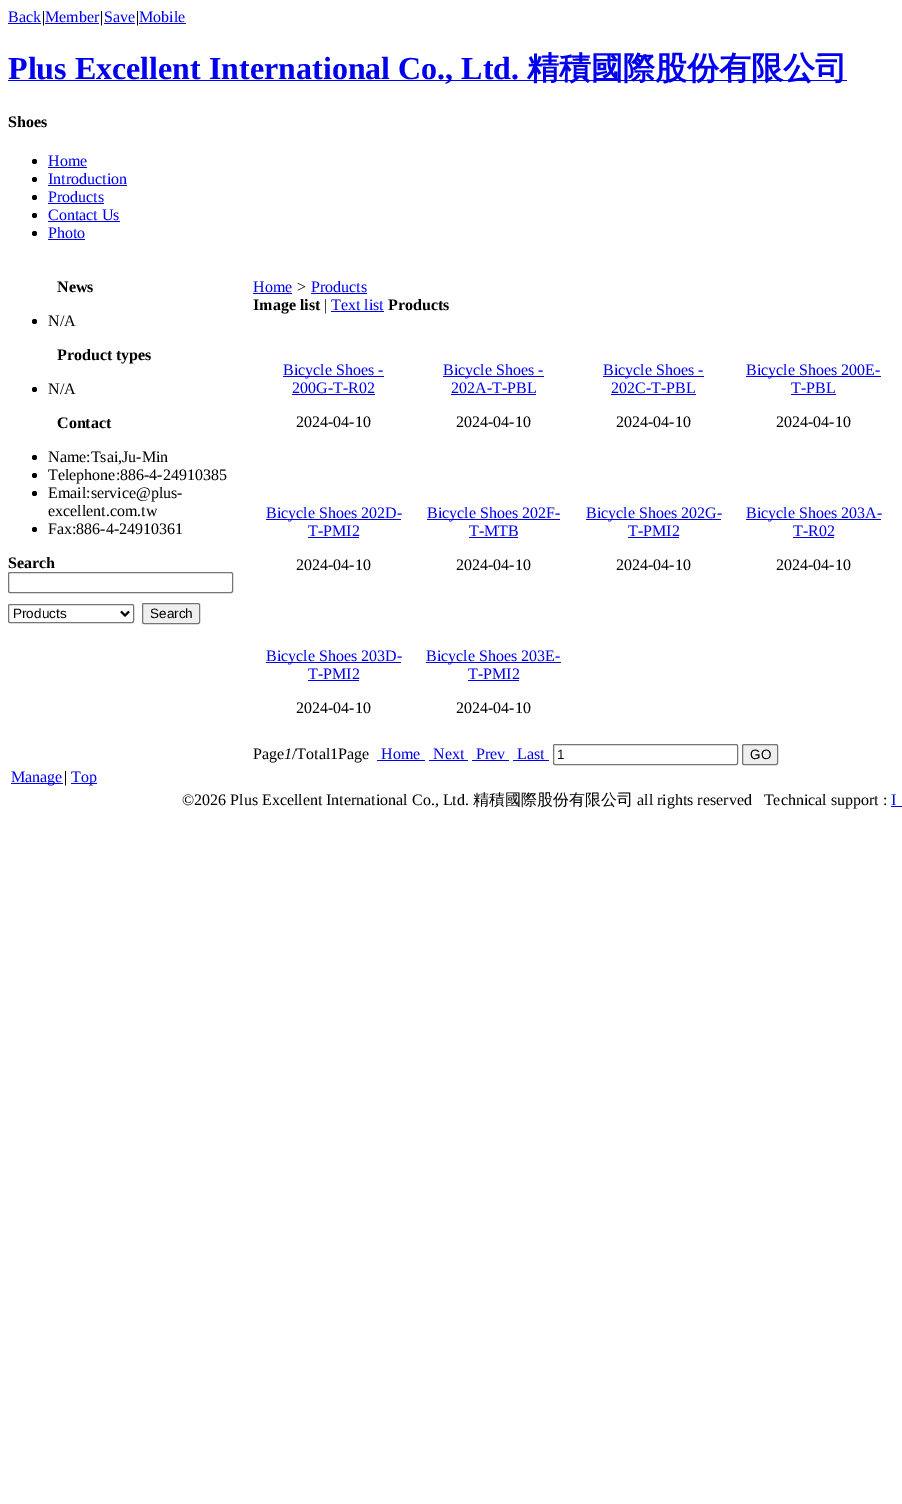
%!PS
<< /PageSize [902 1504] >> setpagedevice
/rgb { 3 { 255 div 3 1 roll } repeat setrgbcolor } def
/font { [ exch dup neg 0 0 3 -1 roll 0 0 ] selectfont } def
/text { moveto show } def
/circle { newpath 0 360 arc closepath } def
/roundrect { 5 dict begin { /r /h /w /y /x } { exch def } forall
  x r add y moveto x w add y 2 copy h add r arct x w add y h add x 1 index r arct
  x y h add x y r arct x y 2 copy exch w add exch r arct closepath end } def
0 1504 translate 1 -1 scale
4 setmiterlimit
255 255 255 rgb
0 0 902 1504 rectfill
0 0 238 rgb
8 23 33 1 rectfill
45 23 54 1 rectfill
104 23 31 1 rectfill
139 23 47 1 rectfill
8 80 839 1 rectfill
0 0 0 rgb
34.5 161.5 2.5 circle fill
0 0 238 rgb
48 167 39 1 rectfill
0 0 0 rgb
34.5 179.5 2.5 circle fill
0 0 238 rgb
48 185 79 1 rectfill
0 0 0 rgb
34.5 197.5 2.5 circle fill
0 0 238 rgb
48 203 56 1 rectfill
0 0 0 rgb
34.5 215.5 2.5 circle fill
0 0 238 rgb
48 221 72 1 rectfill
0 0 0 rgb
34.5 233.5 2.5 circle fill
0 0 238 rgb
48 239 37 1 rectfill
0 0 0 rgb
34.5 321.5 2.5 circle fill
34.5 389.5 2.5 circle fill
34.5 457.5 2.5 circle fill
34.5 475.5 2.5 circle fill
34.5 493.5 2.5 circle fill
34.5 529.5 2.5 circle fill
118 118 118 rgb
8.5 572.5 224 20 1.5 roundrect stroke
8.5 604.5 125 18 1.5 roundrect stroke
0 0 0 rgb
2 setlinewidth
121 611.5 moveto 4 4 rlineto 4 -4 rlineto stroke
239 239 239 rgb
142.5 603.5 57 20 1.5 roundrect gsave fill grestore
118 118 118 rgb
1 setlinewidth
stroke
0 0 238 rgb
253 293 39 1 rectfill
311 293 56 1 rectfill
331 311 53 1 rectfill
283 376 101 1 rectfill
292 394 83 1 rectfill
443 376 101 1 rectfill
451 394 85 1 rectfill
603 376 101 1 rectfill
611 394 85 1 rectfill
746 376 135 1 rectfill
791 394 45 1 rectfill
266 519 135 1 rectfill
308 537 51 1 rectfill
427 519 133 1 rectfill
469 537 49 1 rectfill
586 519 135 1 rectfill
628 537 51 1 rectfill
746 519 135 1 rectfill
793 537 41 1 rectfill
266 662 135 1 rectfill
308 680 51 1 rectfill
426 662 135 1 rectfill
468 680 51 1 rectfill
377 760 48 1 rectfill
429 760 39 1 rectfill
472 760 37 1 rectfill
513 760 36 1 rectfill
118 118 118 rgb
553.5 744.5 184 20 1.5 roundrect stroke
239 239 239 rgb
742.5 744.5 35 20 1.5 roundrect gsave fill grestore
118 118 118 rgb
stroke
0 0 238 rgb
11 783 52 1 rectfill
71 783 26 1 rectfill
891 806 11 1 rectfill
/LiberationSerif-Regular 16 font
(Back) 8 22 text
/LiberationSerif-Italic 16 font
0 0 0 rgb
(|) 41 22 text
/LiberationSerif-Regular 16 font
0 0 238 rgb
(Member) 45 22 text
/LiberationSerif-Italic 16 font
0 0 0 rgb
(|) 99 22 text
/LiberationSerif-Regular 16 font
0 0 238 rgb
(Save) 104 22 text
/LiberationSerif-Italic 16 font
0 0 0 rgb
(|) 135 22 text
/LiberationSerif-Regular 16 font
0 0 238 rgb
(Mobile) 139 22 text
/LiberationSerif-Bold 32 font
(Plus Excellent International Co., Ltd.) 8 79 text
/WenQuanYiZenHei-Bold 32 font
(精積國際股份有限公司) 527 79 text
/LiberationSerif-Bold 16 font
0 0 0 rgb
(Shoes) 8 127 text
/LiberationSerif-Regular 16 font
0 0 238 rgb
(Home) 48 166 text
(Introduction) 48 184 text
(Products) 48 202 text
(Contact Us) 48 220 text
(Photo) 48 238 text
/LiberationSerif-Bold 16 font
0 0 0 rgb
(News) 57 292 text
/LiberationSerif-Regular 16 font
(N/A) 48 326 text
/LiberationSerif-Bold 16 font
(Product types) 57 360 text
/LiberationSerif-Regular 16 font
(N/A) 48 394 text
/LiberationSerif-Bold 16 font
(Contact) 57 428 text
/LiberationSerif-Regular 16 font
(Name:Tsai,Ju-Min) 48 462 text
(Telephone:886-4-24910385) 48 480 text
(Email:service@plus-) 48 498 text
(excellent.com.tw) 48 516 text
(Fax:886-4-24910361) 48 534 text
/LiberationSerif-Bold 16 font
(Search) 8 568 text
/LiberationSans-Regular 13.5 font
(Products) 13 618 text
(Search) 150 618 text
/LiberationSerif-Regular 16 font
0 0 238 rgb
(Home) 253 292 text
/LiberationSerif-Italic 16 font
0 0 0 rgb
(>) 296 292 text
/LiberationSerif-Regular 16 font
0 0 238 rgb
(Products) 311 292 text
/LiberationSerif-Bold 16 font
0 0 0 rgb
(Image list) 253 310 text
/LiberationSerif-Regular 16 font
(|) 324 310 text
0 0 238 rgb
(Text list) 331 310 text
/LiberationSerif-Bold 16 font
0 0 0 rgb
(Products) 388 310 text
/LiberationSerif-Regular 16 font
0 0 238 rgb
(Bicycle Shoes -) 283 375 text
(200G-T-R02) 292 393 text
0 0 0 rgb
(2024-04-10) 296 427 text
0 0 238 rgb
(Bicycle Shoes -) 443 375 text
(202A-T-PBL) 451 393 text
0 0 0 rgb
(2024-04-10) 456 427 text
0 0 238 rgb
(Bicycle Shoes -) 603 375 text
(202C-T-PBL) 611 393 text
0 0 0 rgb
(2024-04-10) 616 427 text
0 0 238 rgb
(Bicycle Shoes 200E-) 746 375 text
(T-PBL) 791 393 text
0 0 0 rgb
(2024-04-10) 776 427 text
0 0 238 rgb
(Bicycle Shoes 202D-) 266 518 text
(T-PMI2) 308 536 text
0 0 0 rgb
(2024-04-10) 296 570 text
0 0 238 rgb
(Bicycle Shoes 202F-) 427 518 text
(T-MTB) 469 536 text
0 0 0 rgb
(2024-04-10) 456 570 text
0 0 238 rgb
(Bicycle Shoes 202G-) 586 518 text
(T-PMI2) 628 536 text
0 0 0 rgb
(2024-04-10) 616 570 text
0 0 238 rgb
(Bicycle Shoes 203A-) 746 518 text
(T-R02) 793 536 text
0 0 0 rgb
(2024-04-10) 776 570 text
0 0 238 rgb
(Bicycle Shoes 203D-) 266 661 text
(T-PMI2) 308 679 text
0 0 0 rgb
(2024-04-10) 296 713 text
0 0 238 rgb
(Bicycle Shoes 203E-) 426 661 text
(T-PMI2) 468 679 text
0 0 0 rgb
(2024-04-10) 456 713 text
(Page) 253 759 text
/LiberationSerif-Italic 16 font
(1) 284 759 text
/LiberationSerif-Regular 16 font
(/Total1Page) 292 759 text
0 0 238 rgb
(Home) 381 759 text
(Next) 433 759 text
(Prev) 476 759 text
(Last) 517 759 text
/LiberationSans-Regular 13.5 font
0 0 0 rgb
(1) 557 759 text
(GO) 750 759 text
/LiberationSerif-Regular 16 font
0 0 238 rgb
(Manage) 11 782 text
/LiberationSerif-Italic 16 font
0 0 0 rgb
(|) 63 782 text
/LiberationSerif-Regular 16 font
0 0 238 rgb
(Top) 71 782 text
0 0 0 rgb
(©2026 Plus Excellent International Co., Ltd.) 182 805 text
/WenQuanYiZenHei-Medium 16 font
(精積國際股份有限公司) 473 805 text
/LiberationSerif-Regular 16 font
(all rights reserved   Technical support :) 637 805 text
0 0 238 rgb
(I) 891 805 text
showpage
